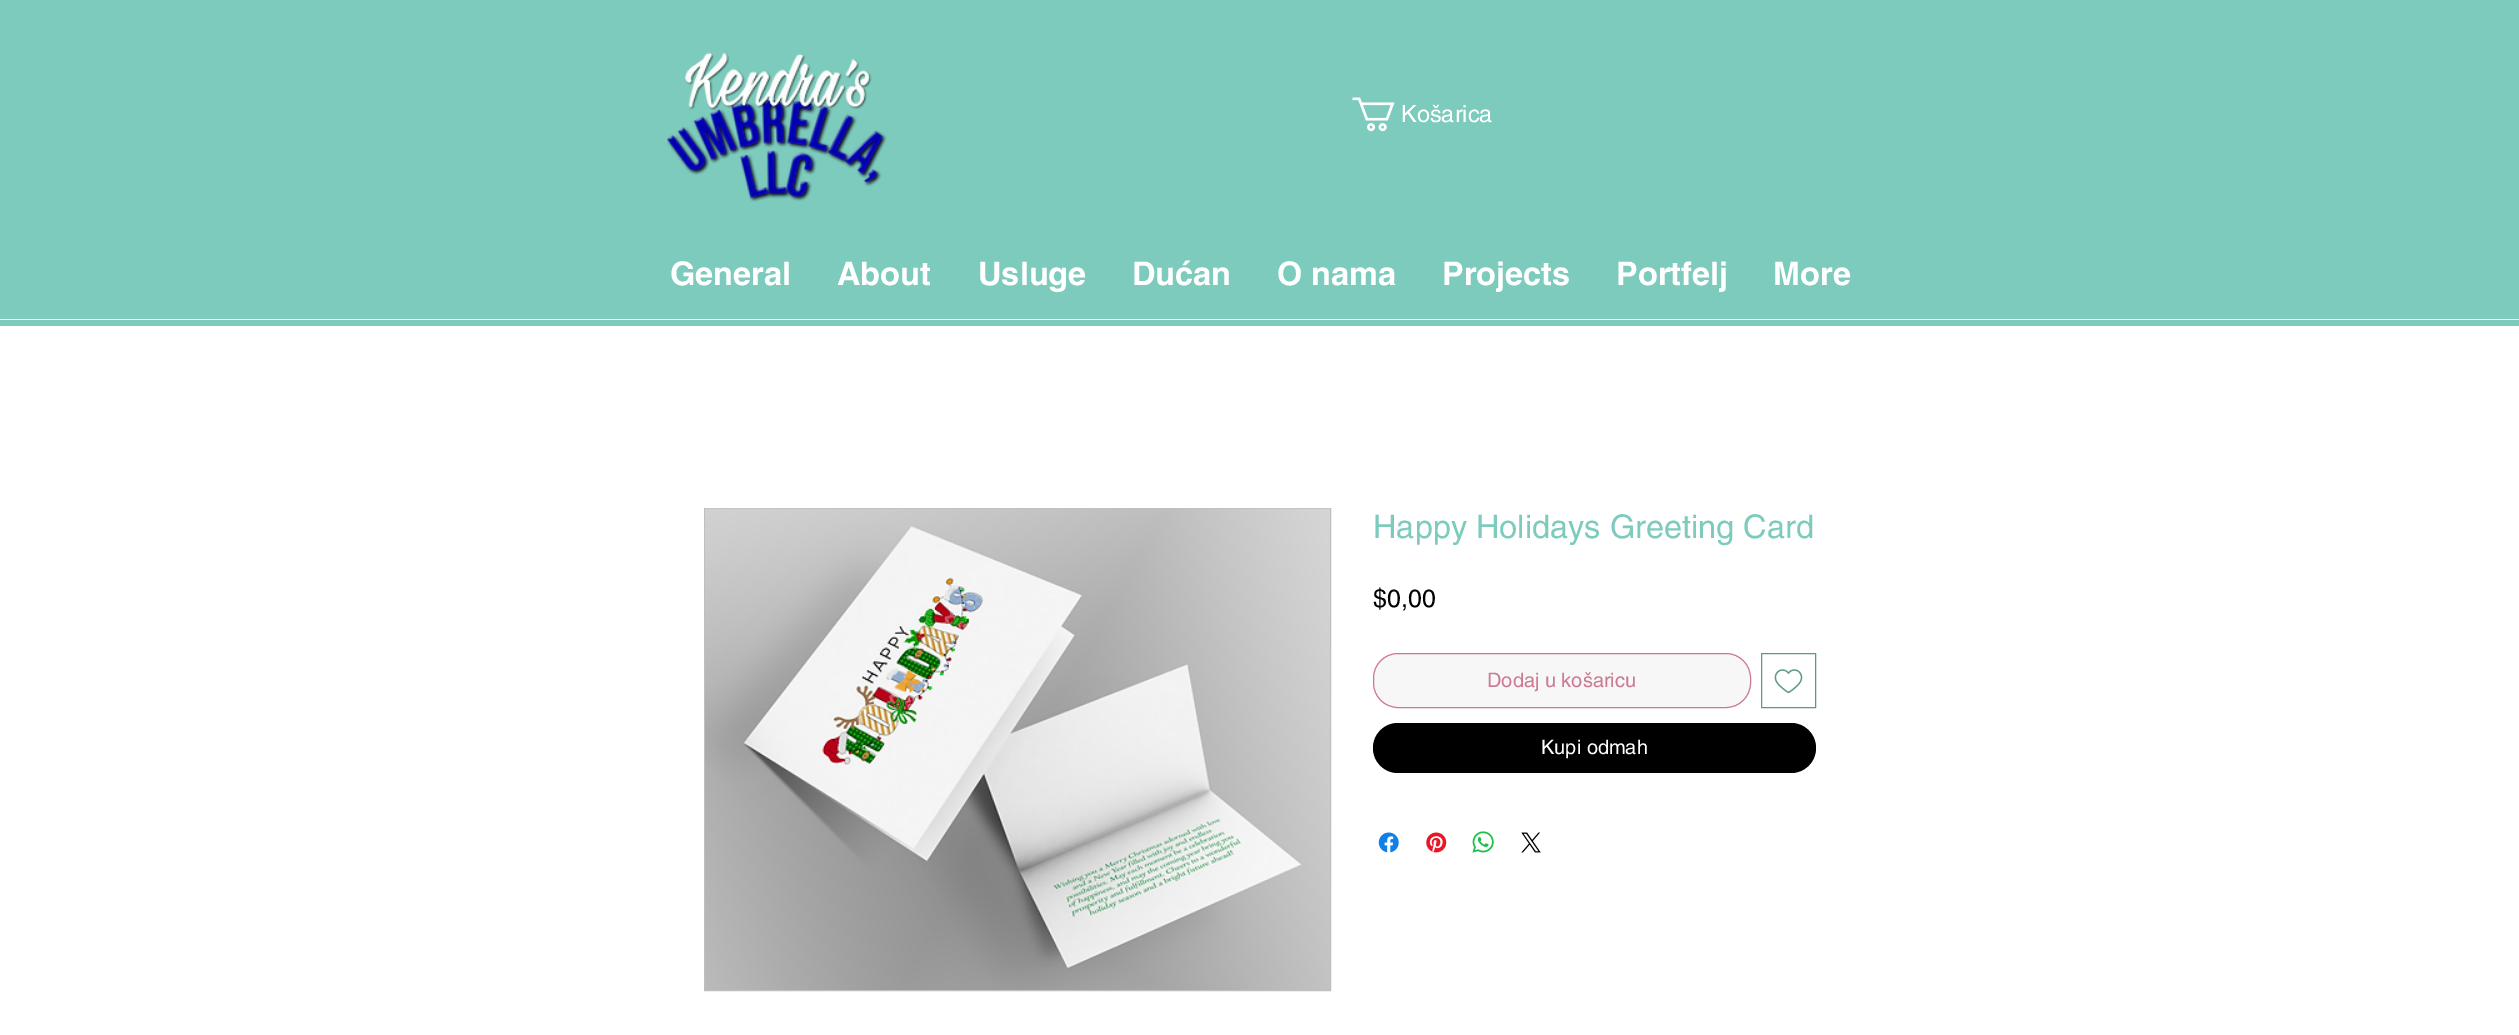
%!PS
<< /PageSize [2519 1035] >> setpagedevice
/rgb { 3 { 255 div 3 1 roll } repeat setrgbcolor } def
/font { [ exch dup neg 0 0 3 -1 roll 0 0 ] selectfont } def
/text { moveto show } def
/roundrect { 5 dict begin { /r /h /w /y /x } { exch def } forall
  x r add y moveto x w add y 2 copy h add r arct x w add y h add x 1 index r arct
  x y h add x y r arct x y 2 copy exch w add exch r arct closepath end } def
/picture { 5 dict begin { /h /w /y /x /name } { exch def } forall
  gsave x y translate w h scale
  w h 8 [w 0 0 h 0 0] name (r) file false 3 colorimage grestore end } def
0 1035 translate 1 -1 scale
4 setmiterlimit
255 255 255 rgb
0 0 2519 1035 rectfill
124 203 188 rgb
0 0 2519 326 rectfill
(img_01.rgb) 667 52 220 150 picture
(img_02.rgb) 1352 97 43 35 picture
255 255 255 rgb
0 319 2519 1 rectfill
191 191 191 rgb
704.5 508.5 626 482 rectstroke
(img_03.rgb) 705 508 625 482 picture
247 247 247 rgb
1373.5 653.5 377 54 24.5 roundrect gsave fill grestore
204 122 146 rgb
stroke
93 152 141 rgb
1761.5 653.5 54 54 rectstroke
(img_04.rgb) 1774 669 29 25 picture
0 0 0 rgb
1373 723 443 50 25 roundrect fill
(img_05.rgb) 1378 832 21 21 picture
(img_06.rgb) 1426 832 21 21 picture
(img_07.rgb) 1472 831 22 22 picture
(img_08.rgb) 1521 832 20 21 picture
/helvetica-Regular 23.5 font
255 255 255 rgb
(Košarica) 1401 122 text
/helvetica-Bold 32.5 font
(General) 670 285 text
(About) 837 285 text
(Usluge) 978 285 text
(Dućan) 1132 285 text
(O nama) 1277 285 text
(Projects) 1442 285 text
(Portfelj) 1616 285 text
(More) 1773 285 text
/helvetica-Regular 32.5 font
124 203 188 rgb
(Happy Holidays Greeting Card) 1373 538 text
/helvetica-Regular 25 font
0 0 0 rgb
($0,00) 1373 607 text
/helvetica-Regular 20 font
204 122 146 rgb
(Dodaj u košaricu) 1487 687 text
255 255 255 rgb
(Kupi odmah) 1541 754 text
showpage
